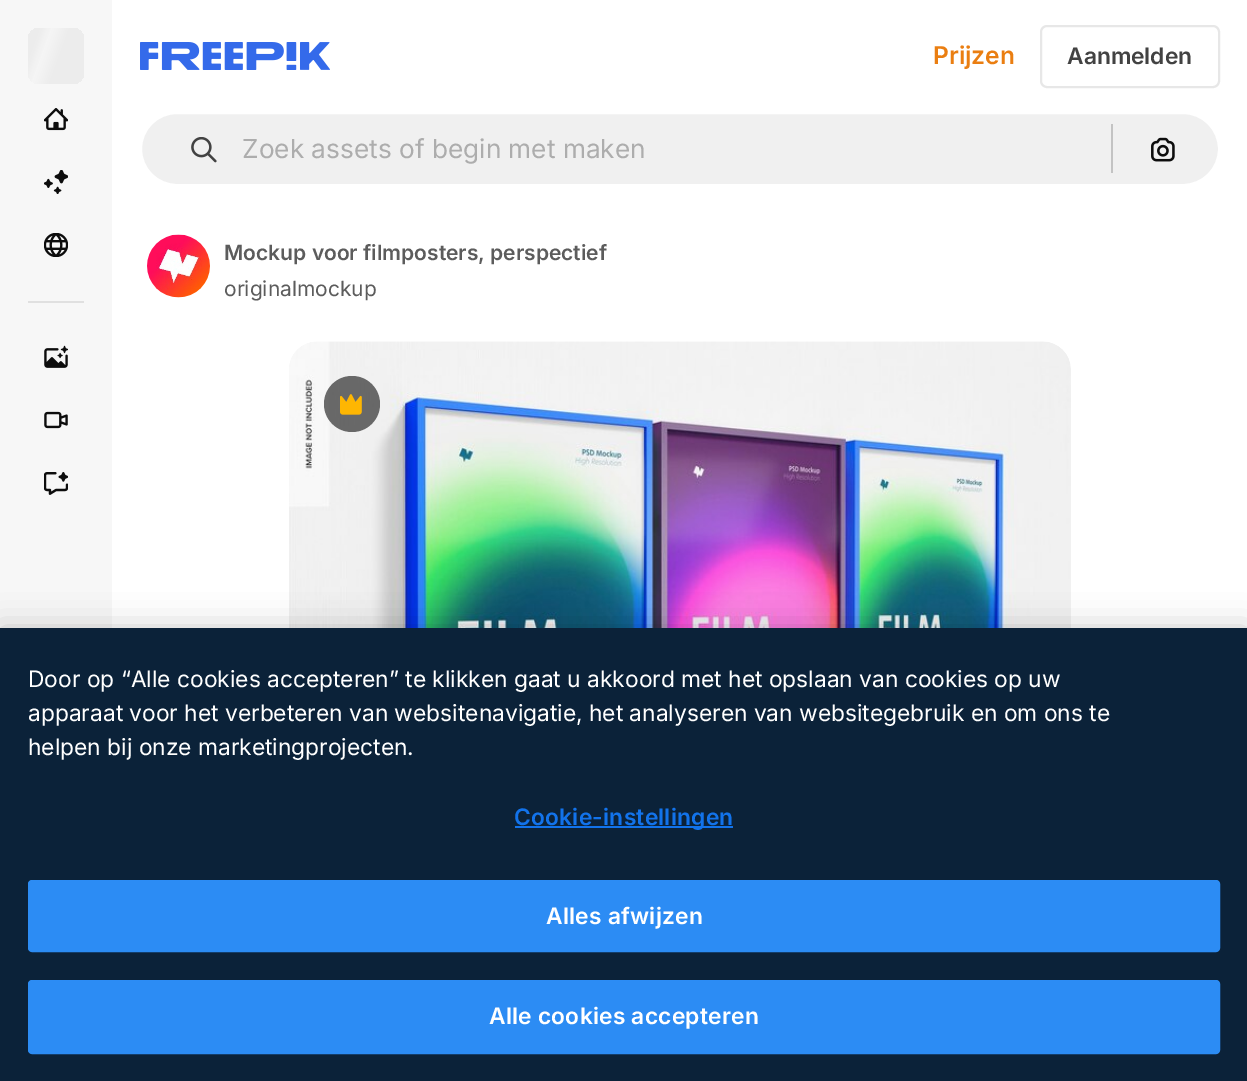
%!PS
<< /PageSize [1247 1081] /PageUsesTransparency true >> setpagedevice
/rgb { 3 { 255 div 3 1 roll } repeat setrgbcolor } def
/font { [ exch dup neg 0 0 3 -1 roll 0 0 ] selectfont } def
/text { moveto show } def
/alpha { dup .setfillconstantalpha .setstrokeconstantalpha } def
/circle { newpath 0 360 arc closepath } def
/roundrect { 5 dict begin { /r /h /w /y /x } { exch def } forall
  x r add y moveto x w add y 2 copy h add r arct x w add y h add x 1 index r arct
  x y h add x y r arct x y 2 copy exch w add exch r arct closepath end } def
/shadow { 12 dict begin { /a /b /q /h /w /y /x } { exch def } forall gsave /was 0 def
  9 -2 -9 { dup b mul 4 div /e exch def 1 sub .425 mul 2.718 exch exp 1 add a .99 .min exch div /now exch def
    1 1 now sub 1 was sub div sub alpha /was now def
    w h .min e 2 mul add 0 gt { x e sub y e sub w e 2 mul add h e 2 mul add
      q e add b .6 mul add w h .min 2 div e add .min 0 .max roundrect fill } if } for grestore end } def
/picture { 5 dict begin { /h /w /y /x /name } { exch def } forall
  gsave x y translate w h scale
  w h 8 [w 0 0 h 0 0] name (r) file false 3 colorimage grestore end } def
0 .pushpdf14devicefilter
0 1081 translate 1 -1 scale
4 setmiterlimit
255 255 255 rgb
0 0 1247 1081 rectfill
247 247 247 rgb
0 0 112 628 rectfill
gsave 28 28 56 56 11 roundrect clip newpath
<< /ShadingType 2 /ColorSpace /DeviceRGB /Coords [26 35 142 77] /Extend [true true] /Function << /FunctionType 3 /Domain [0 1] /Functions [<< /FunctionType 2 /Domain [0 1] /C0 [0.925 0.925 0.925] /C1 [0.925 0.925 0.925] /N 1 >> << /FunctionType 2 /Domain [0 1] /C0 [0.925 0.925 0.925] /C1 [0.961 0.961 0.961] /N 1 >> << /FunctionType 2 /Domain [0 1] /C0 [0.961 0.961 0.961] /C1 [0.925 0.925 0.925] /N 1 >> << /FunctionType 2 /Domain [0 1] /C0 [0.925 0.925 0.925] /C1 [0.925 0.925 0.925] /N 1 >>] /Bounds [0.08 0.18 0.33] /Encode [0 1 0 1 0 1 0 1] >> >> shfill grestore
(img_01.rgb) 44 108 24 23 picture
(img_02.rgb) 44 170 24 24 picture
(img_03.rgb) 44 233 24 24 picture
224 224 224 rgb
28 301 56 2 rectfill
(img_04.rgb) 44 345 24 23 picture
(img_05.rgb) 44 411 24 18 picture
(img_06.rgb) 44 472 24 23 picture
(img_07.rgb) 140 42 190 28 picture
231 231 231 rgb
2 setlinewidth
1041 26 178 61 6 roundrect stroke
240 240 240 rgb
141 113 1078 72 36 roundrect gsave fill grestore
255 255 255 rgb
stroke
(img_08.rgb) 191 137 26 26 picture
195 195 195 rgb
1111 124 2 49 rectfill
(img_09.rgb) 1151 137 24 25 picture
(img_10.rgb) 147 234 63 64 picture
(img_11.rgb) 289 341 782 287 picture
0.6 alpha
13 13 13 rgb
352 404 28 circle fill
1 alpha
(img_12.rgb) 340 394 22 21 picture
0 0 0 rgb
0 628 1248 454 0 16 0.2 shadow
11 34 57 rgb
0 628 1247 453 rectfill
18 115 235 rgb
515 826 218 2 rectfill
44 140 244 rgb
29 881 1190 70 3 roundrect gsave fill grestore
stroke
29 981 1190 72 3 roundrect gsave fill grestore
stroke
/Inter-SemiBold 24.5 font
234 126 17 rgb
(Prijzen) 933 64 text
/Inter-SemiBold 22.75 font
66 66 66 rgb
(Aanmelden) 1067 64 text
/Inter-Regular 26.25 font
173 173 173 rgb
(Zoek assets of begin met maken) 242 158 text
/Inter-SemiBold 21 font
92 92 92 rgb
(Mockup voor filmposters, perspectief) 224 260 text
/Inter-Regular 21 font
(originalmockup) 224 296 text
/Inter-Regular 22.75 font
255 255 255 rgb
(Door op “Alle cookies accepteren” te klikken gaat u akkoord met het opslaan van cookies op uw) 28 687 text
(apparaat voor het verbeteren van websitenavigatie, het analyseren van websitegebruik en om ons te) 28 721 text
(helpen bij onze marketingprojecten.) 28 755 text
/Inter-SemiBold 22.75 font
18 115 235 rgb
514 825 moveto 0.25 0 (Cookie-instellingen) ashow
255 255 255 rgb
546 924 moveto 0.25 0 (Alles afwijzen) ashow
489 1024 moveto 0.25 0 (Alle cookies accepteren) ashow
.poppdf14devicefilter showpage
